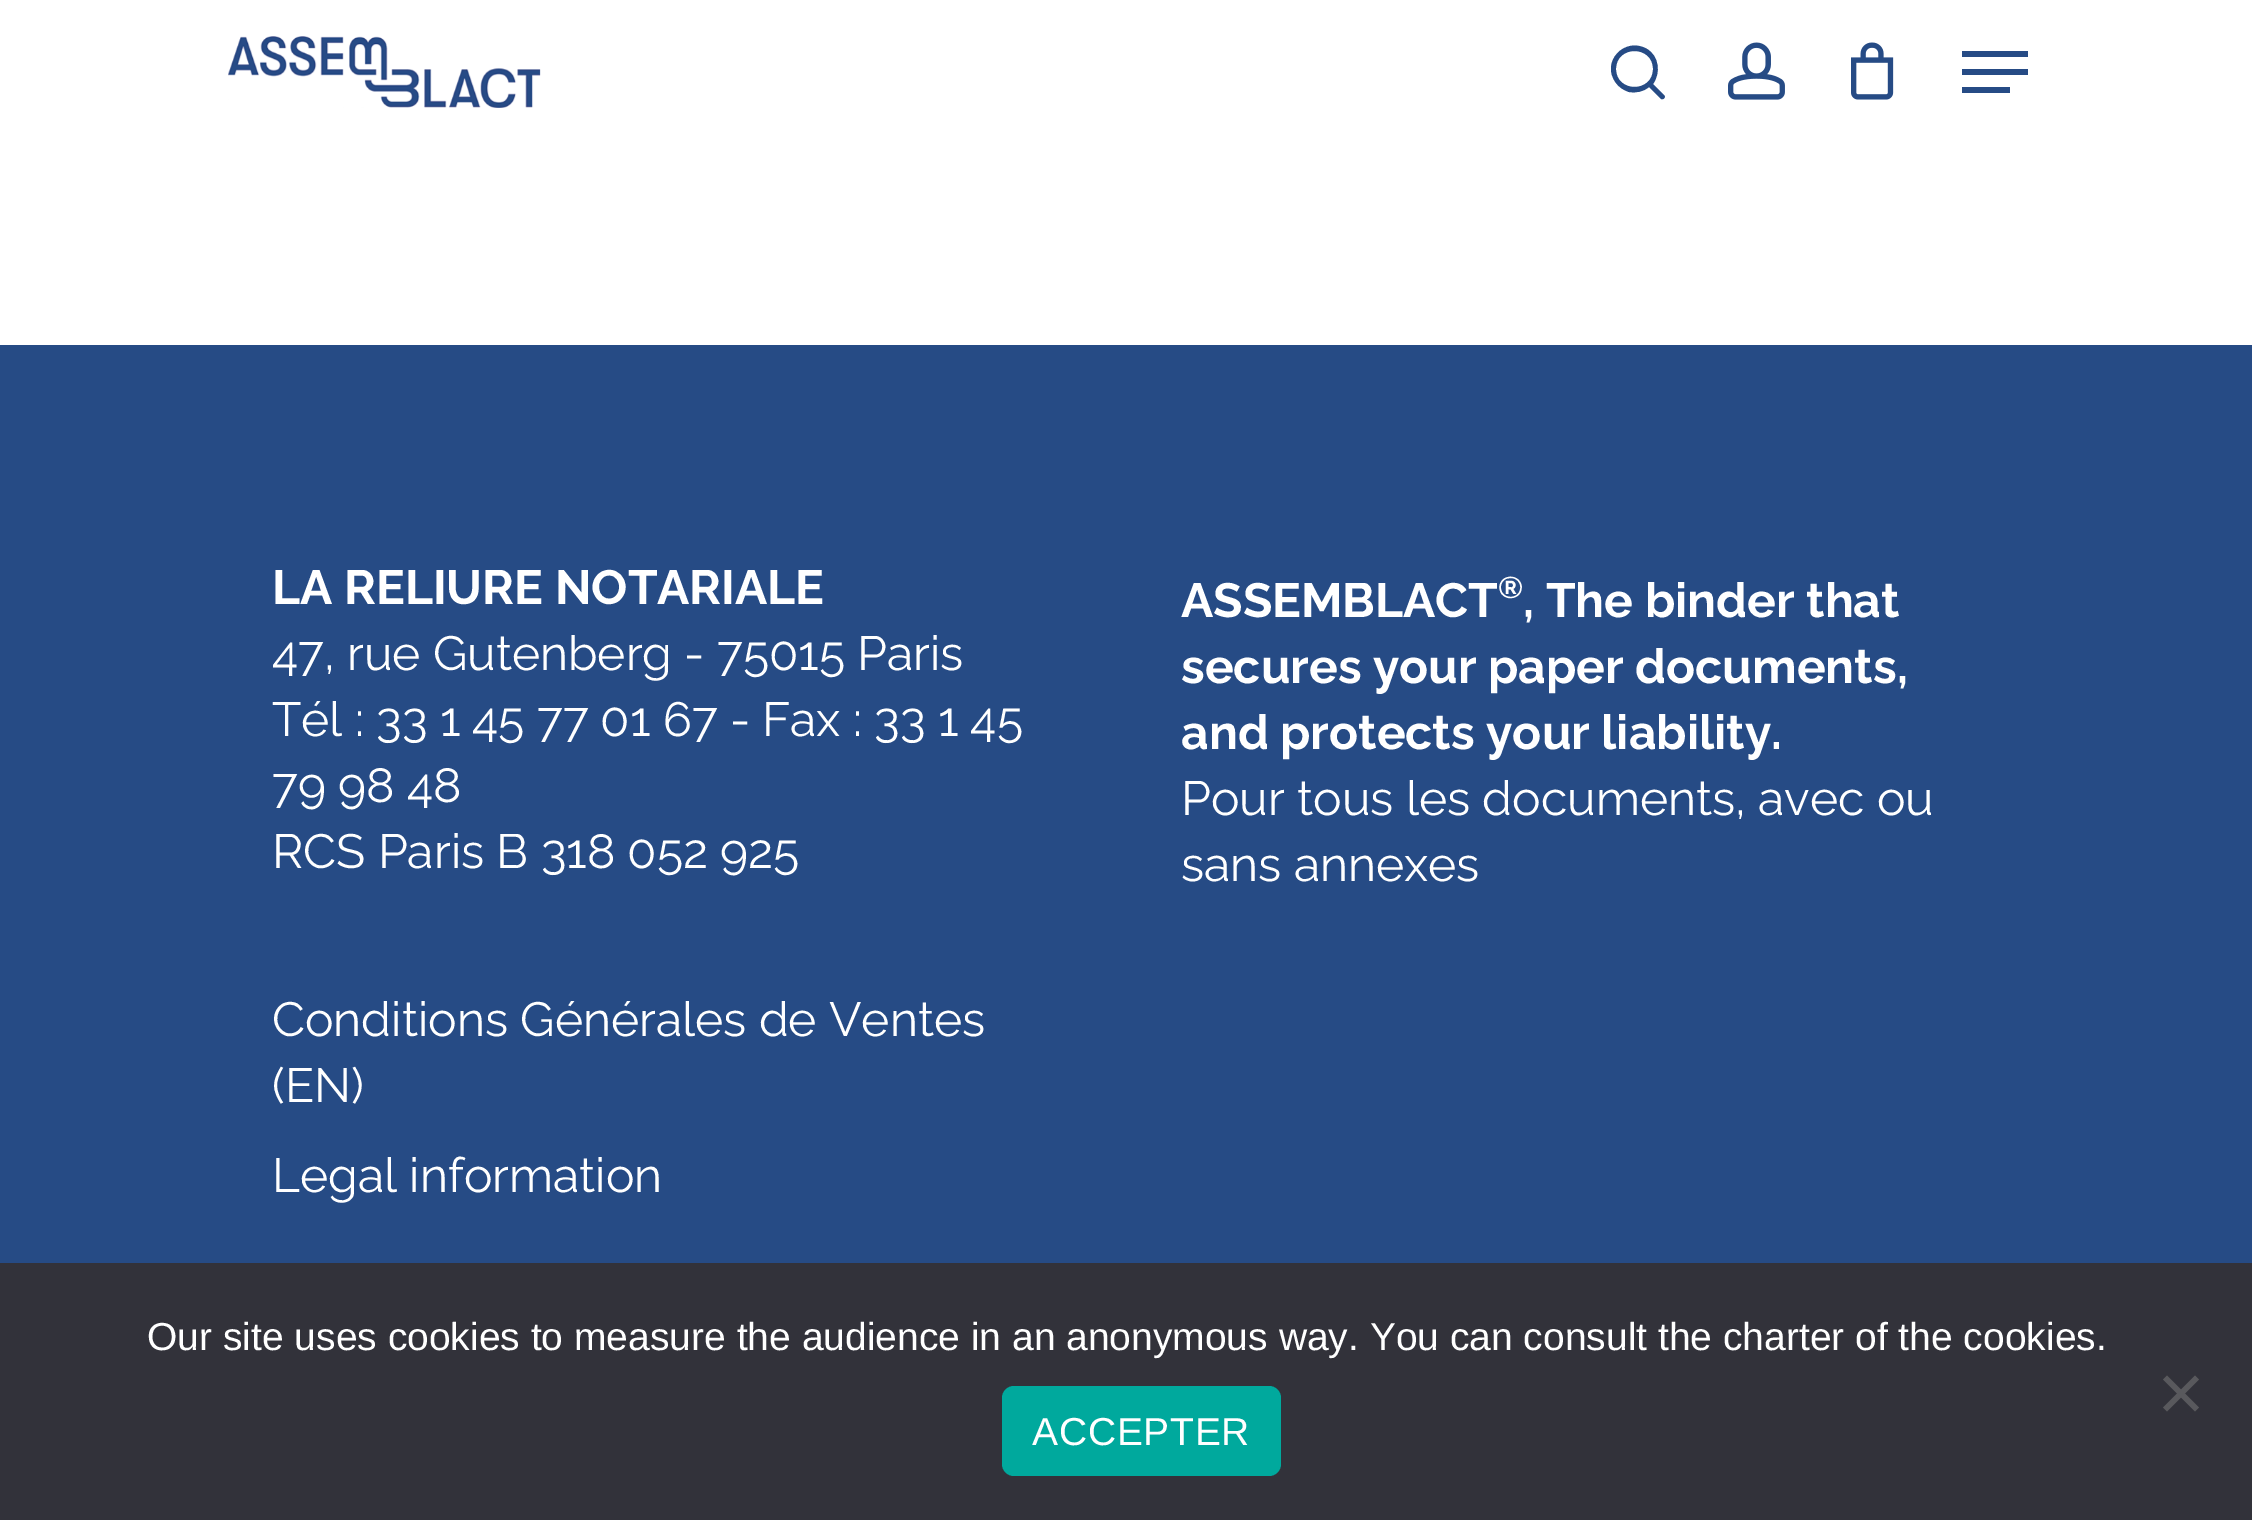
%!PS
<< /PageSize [2252 1520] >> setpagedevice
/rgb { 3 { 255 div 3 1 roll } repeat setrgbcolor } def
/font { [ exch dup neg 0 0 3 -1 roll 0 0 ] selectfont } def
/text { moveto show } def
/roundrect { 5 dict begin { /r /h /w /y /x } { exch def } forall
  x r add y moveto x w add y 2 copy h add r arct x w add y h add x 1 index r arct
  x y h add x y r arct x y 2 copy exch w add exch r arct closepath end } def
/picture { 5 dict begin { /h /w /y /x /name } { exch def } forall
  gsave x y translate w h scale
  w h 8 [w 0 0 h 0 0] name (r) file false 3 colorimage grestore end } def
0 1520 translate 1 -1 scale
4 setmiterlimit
255 255 255 rgb
0 0 2252 1520 rectfill
(img_01.rgb) 228 36 313 72 picture
38 75 133 rgb
1664 95 moveto -11 -11 rlineto 8 -11 6 -28 -6 -35 rcurveto -22 -13 -47 13 -31 34 rcurveto 3 4 7 7 13 9 rcurveto 7 1 14 0 20 -5 rcurveto 12 12 rlineto 3 1 5 -2 3 -4 rcurveto closepath 1616 69 moveto 0 -24 37 -24 37 0 rcurveto 0 24 -37 24 -37 0 rcurveto closepath fill
(img_02.rgb) 1728 42 57 58 picture
(img_03.rgb) 1851 42 43 58 picture
1962 51 66 6 rectfill
1962 87 48 6 rectfill
1962 69 66 6 rectfill
0 345 2252 918 rectfill
50 50 58 rgb
0 1263 2252 257 rectfill
89 89 93 rgb
2195 1375.5 moveto 4 4 rlineto -32 32 rlineto -4 -4 rlineto closepath fill
2163 1379.5 moveto 4 -4 rlineto 32 32 rlineto -4 4 rlineto closepath fill
0 169 157 rgb
1002 1386 279 90 12 roundrect fill
/Raleway-Bold 48 font
255 255 255 rgb
(LA RELIURE NOTARIALE) 272 604 text
/Raleway-Regular 48 font
(47, rue Gutenberg - 75015 Paris) 272 670 text
(Tél : 33 1 45 77 01 67 - Fax : 33 1 45) 272 736 text
(79 98 48) 272 802 text
(RCS Paris B 318 052 925) 272 868 text
(Conditions Générales de Ventes) 272 1036 text
(\(EN\)) 272 1102 text
(Legal information) 272 1192 text
/Raleway-Bold 48 font
(ASSEMBLACT) 1181 617 text
/Raleway-Bold 30 font
(®) 1498 598 text
/Raleway-Bold 48 font
(, The binder that) 1523 617 text
(secures your paper documents,) 1181 683 text
(and protects your liability.) 1181 749 text
/Raleway-Regular 48 font
(Pour tous les documents, avec ou) 1181 815 text
(sans annexes) 1181 881 text
/LiberationSans-Regular 39 font
(Our site uses cookies to measure the audience in an anonymous way. You can consult the charter of the cookies.) 147 1350 text
1032 1445 moveto 0.75 0 (ACCEPTER) ashow
showpage
